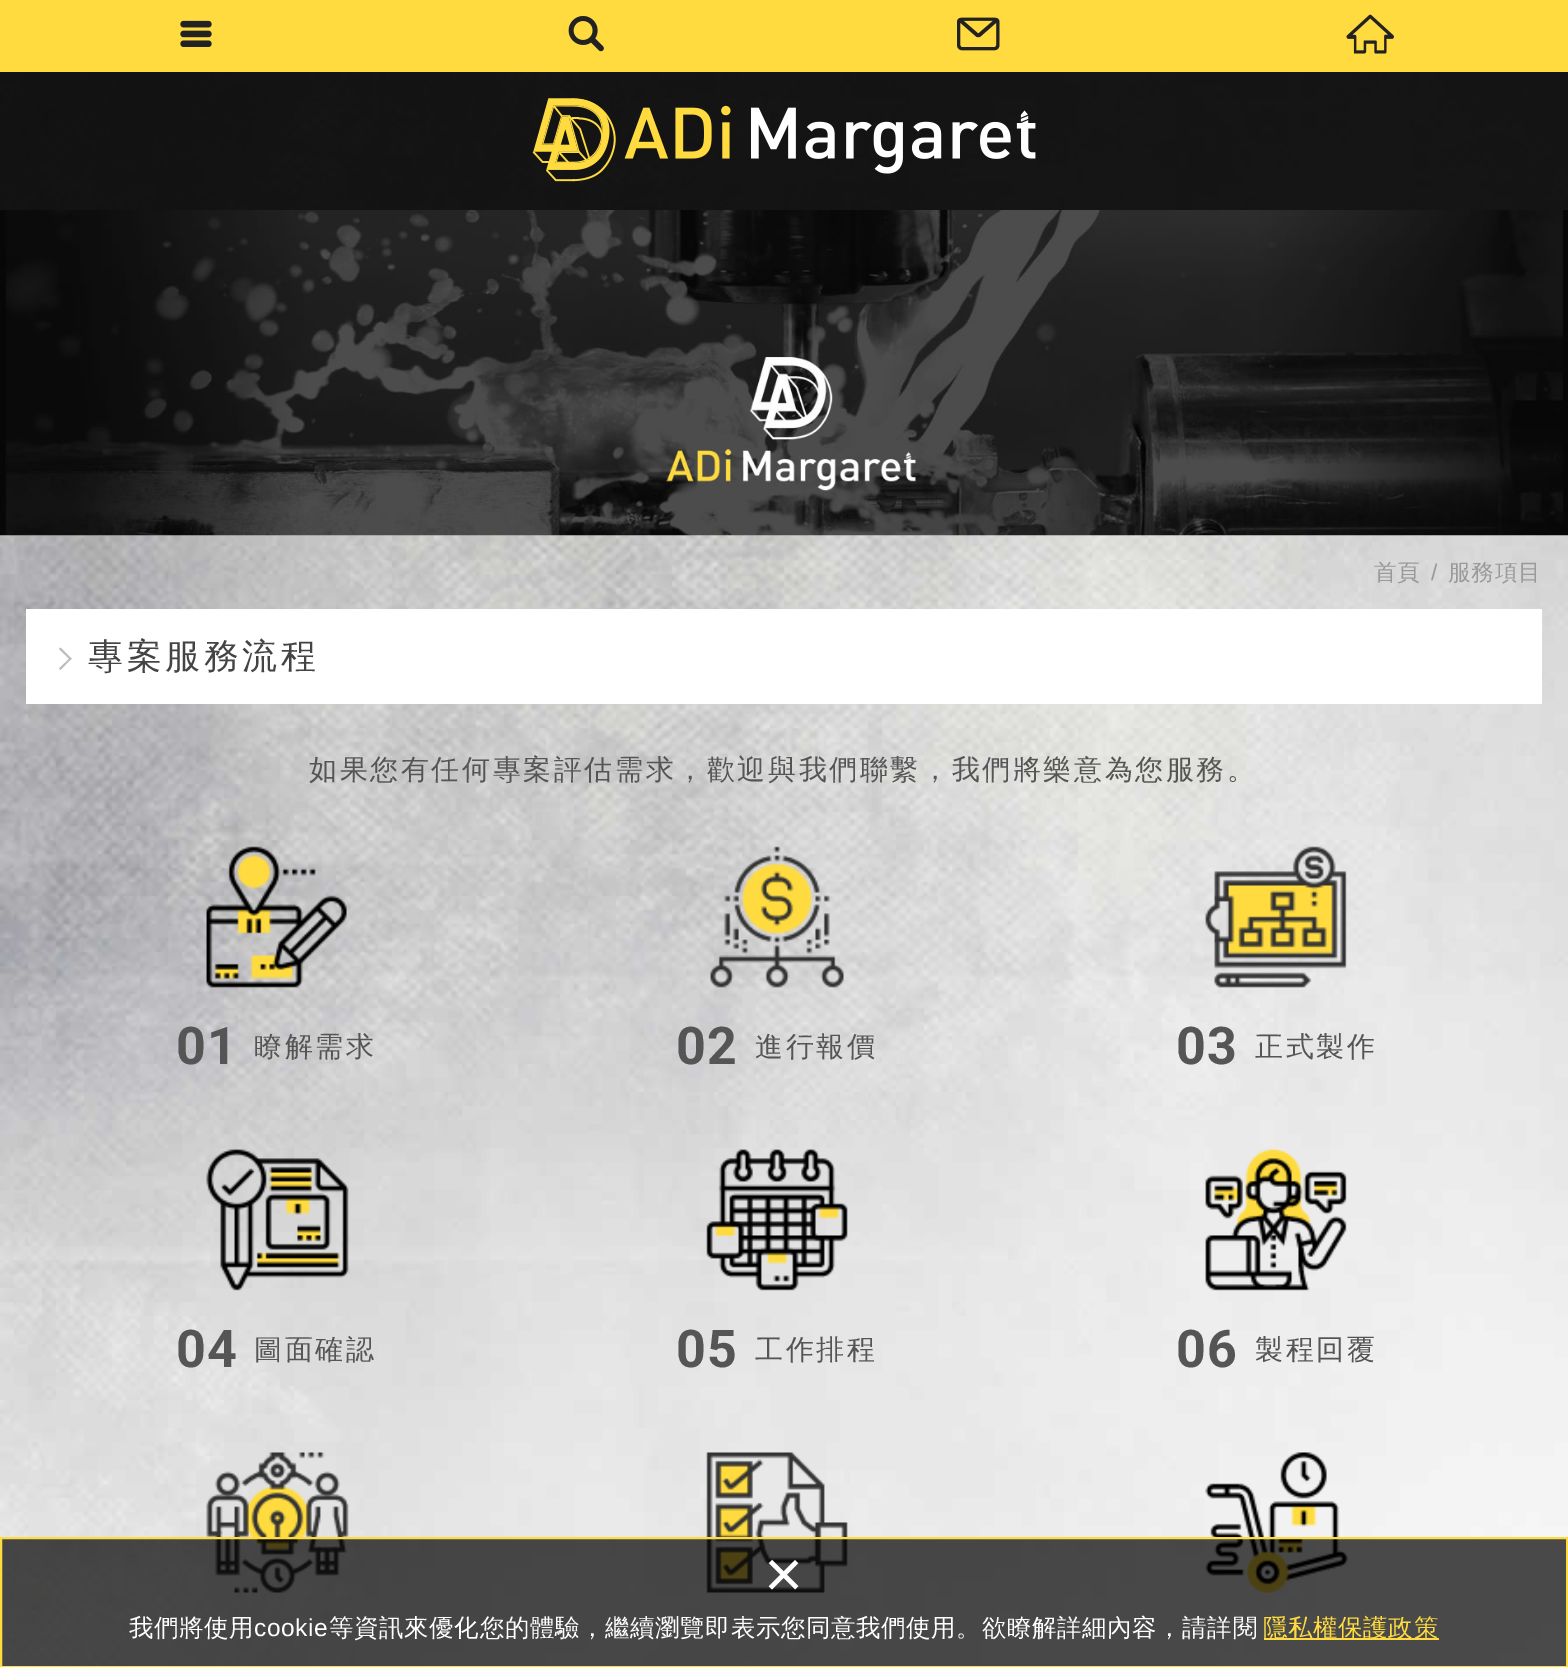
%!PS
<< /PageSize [1568 1667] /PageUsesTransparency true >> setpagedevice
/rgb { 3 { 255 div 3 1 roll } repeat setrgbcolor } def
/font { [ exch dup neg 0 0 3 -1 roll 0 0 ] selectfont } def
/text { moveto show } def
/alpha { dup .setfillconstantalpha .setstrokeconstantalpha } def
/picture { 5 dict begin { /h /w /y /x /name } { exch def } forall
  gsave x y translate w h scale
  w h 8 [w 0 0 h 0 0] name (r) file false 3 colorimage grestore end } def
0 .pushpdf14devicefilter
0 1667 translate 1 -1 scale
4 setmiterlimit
255 255 255 rgb
0 0 1568 1667 rectfill
(img_01.rgb) 0 72 1568 1594 picture
255 219 63 rgb
0 70 1568 2 rectfill
0 0 1568 70 rectfill
(img_02.rgb) 180 20 32 27 picture
(img_03.rgb) 568 16 36 36 picture
(img_04.rgb) 957 17 43 34 picture
(img_05.rgb) 1346 14 48 40 picture
(img_06.rgb) 0 210 1568 326 picture
255 255 255 rgb
26 609 1516 95 rectfill
187 187 187 rgb
60.5 647.5 moveto 11 11 rlineto -1 1.5 rlineto -11.5 -11 rlineto closepath fill
70.5 657.5 moveto 1 1 rlineto -11 11.5 rlineto -1.5 -1.5 rlineto closepath fill
(img_07.rgb) 206 846 141 142 picture
(img_08.rgb) 710 846 134 142 picture
(img_09.rgb) 1205 846 142 142 picture
(img_10.rgb) 206 1149 143 142 picture
(img_11.rgb) 706 1149 142 142 picture
(img_12.rgb) 1205 1149 142 142 picture
(img_13.rgb) 206 1452 143 141 picture
(img_14.rgb) 706 1452 142 141 picture
(img_15.rgb) 1205 1452 143 141 picture
0.9 alpha
0 0 0 rgb
0 72 1568 138 rectfill
1 alpha
(img_16.rgb) 532 98 504 84 picture
0.7 alpha
1 1538 moveto 1566 0 rlineto 0 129 rlineto -1566 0 rlineto closepath fill
1 alpha
255 219 63 rgb
2 setlinewidth
1 1538 moveto 1566 0 rlineto 0 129 rlineto -1566 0 rlineto closepath stroke
1264 1638 175 2 rectfill
/WenQuanYiZenHei-Medium 22.75 font
153 153 153 rgb
1374 580 moveto 0.6 0 (首頁) ashow
/LiberationSans-Regular 22.75 font
1431 580 moveto 0.6 0 (/) ashow
/WenQuanYiZenHei-Medium 22.75 font
1448 580 moveto 0.6 0 (服務項目) ashow
/WenQuanYiZenHei-Medium 35 font
68 68 68 rgb
88 668 moveto 3.5 0 (專案服務流程) ashow
/WenQuanYiZenHei-Medium 28 font
85 85 85 rgb
309 779 moveto 2.6 0 (如果您有任何專案評估需求，歡迎與我們聯繫，我們將樂意為您服務。) ashow
/Roboto-Bold 52 font
176 1064 moveto 1 0 (01) ashow
/WenQuanYiZenHei-Medium 28 font
254 1056 moveto 2.6 0 (瞭解需求) ashow
/Roboto-Bold 52 font
676 1064 moveto 1 0 (02) ashow
/WenQuanYiZenHei-Medium 28 font
755 1056 moveto 2.6 0 (進行報價) ashow
/Roboto-Bold 52 font
1176 1064 moveto 1 0 (03) ashow
/WenQuanYiZenHei-Medium 28 font
1255 1056 moveto 2.6 0 (正式製作) ashow
/Roboto-Bold 52 font
176 1367 moveto 1 0 (04) ashow
/WenQuanYiZenHei-Medium 28 font
254 1359 moveto 2.6 0 (圖面確認) ashow
/Roboto-Bold 52 font
676 1367 moveto 1 0 (05) ashow
/WenQuanYiZenHei-Medium 28 font
755 1359 moveto 2.6 0 (工作排程) ashow
/Roboto-Bold 52 font
1176 1367 moveto 1 0 (06) ashow
/WenQuanYiZenHei-Medium 28 font
1255 1359 moveto 2.6 0 (製程回覆) ashow
/LiberationSans-Regular 67 font
255 255 255 rgb
(×) 764 1597 text
/WenQuanYiZenHei-Medium 24.5 font
129 1636 moveto 0.6 0 (我們將使用) ashow
/LiberationSans-Regular 24.5 font
254 1636 moveto 0.6 0 (cookie) ashow
/WenQuanYiZenHei-Medium 24.5 font
329 1636 moveto 0.6 0 (等資訊來優化您的體驗，繼續瀏覽即表示您同意我們使用。欲瞭解詳細內容，請詳閱) ashow
255 219 63 rgb
1263 1636 moveto 0.6 0 (隱私權保護政策) ashow
.poppdf14devicefilter showpage
